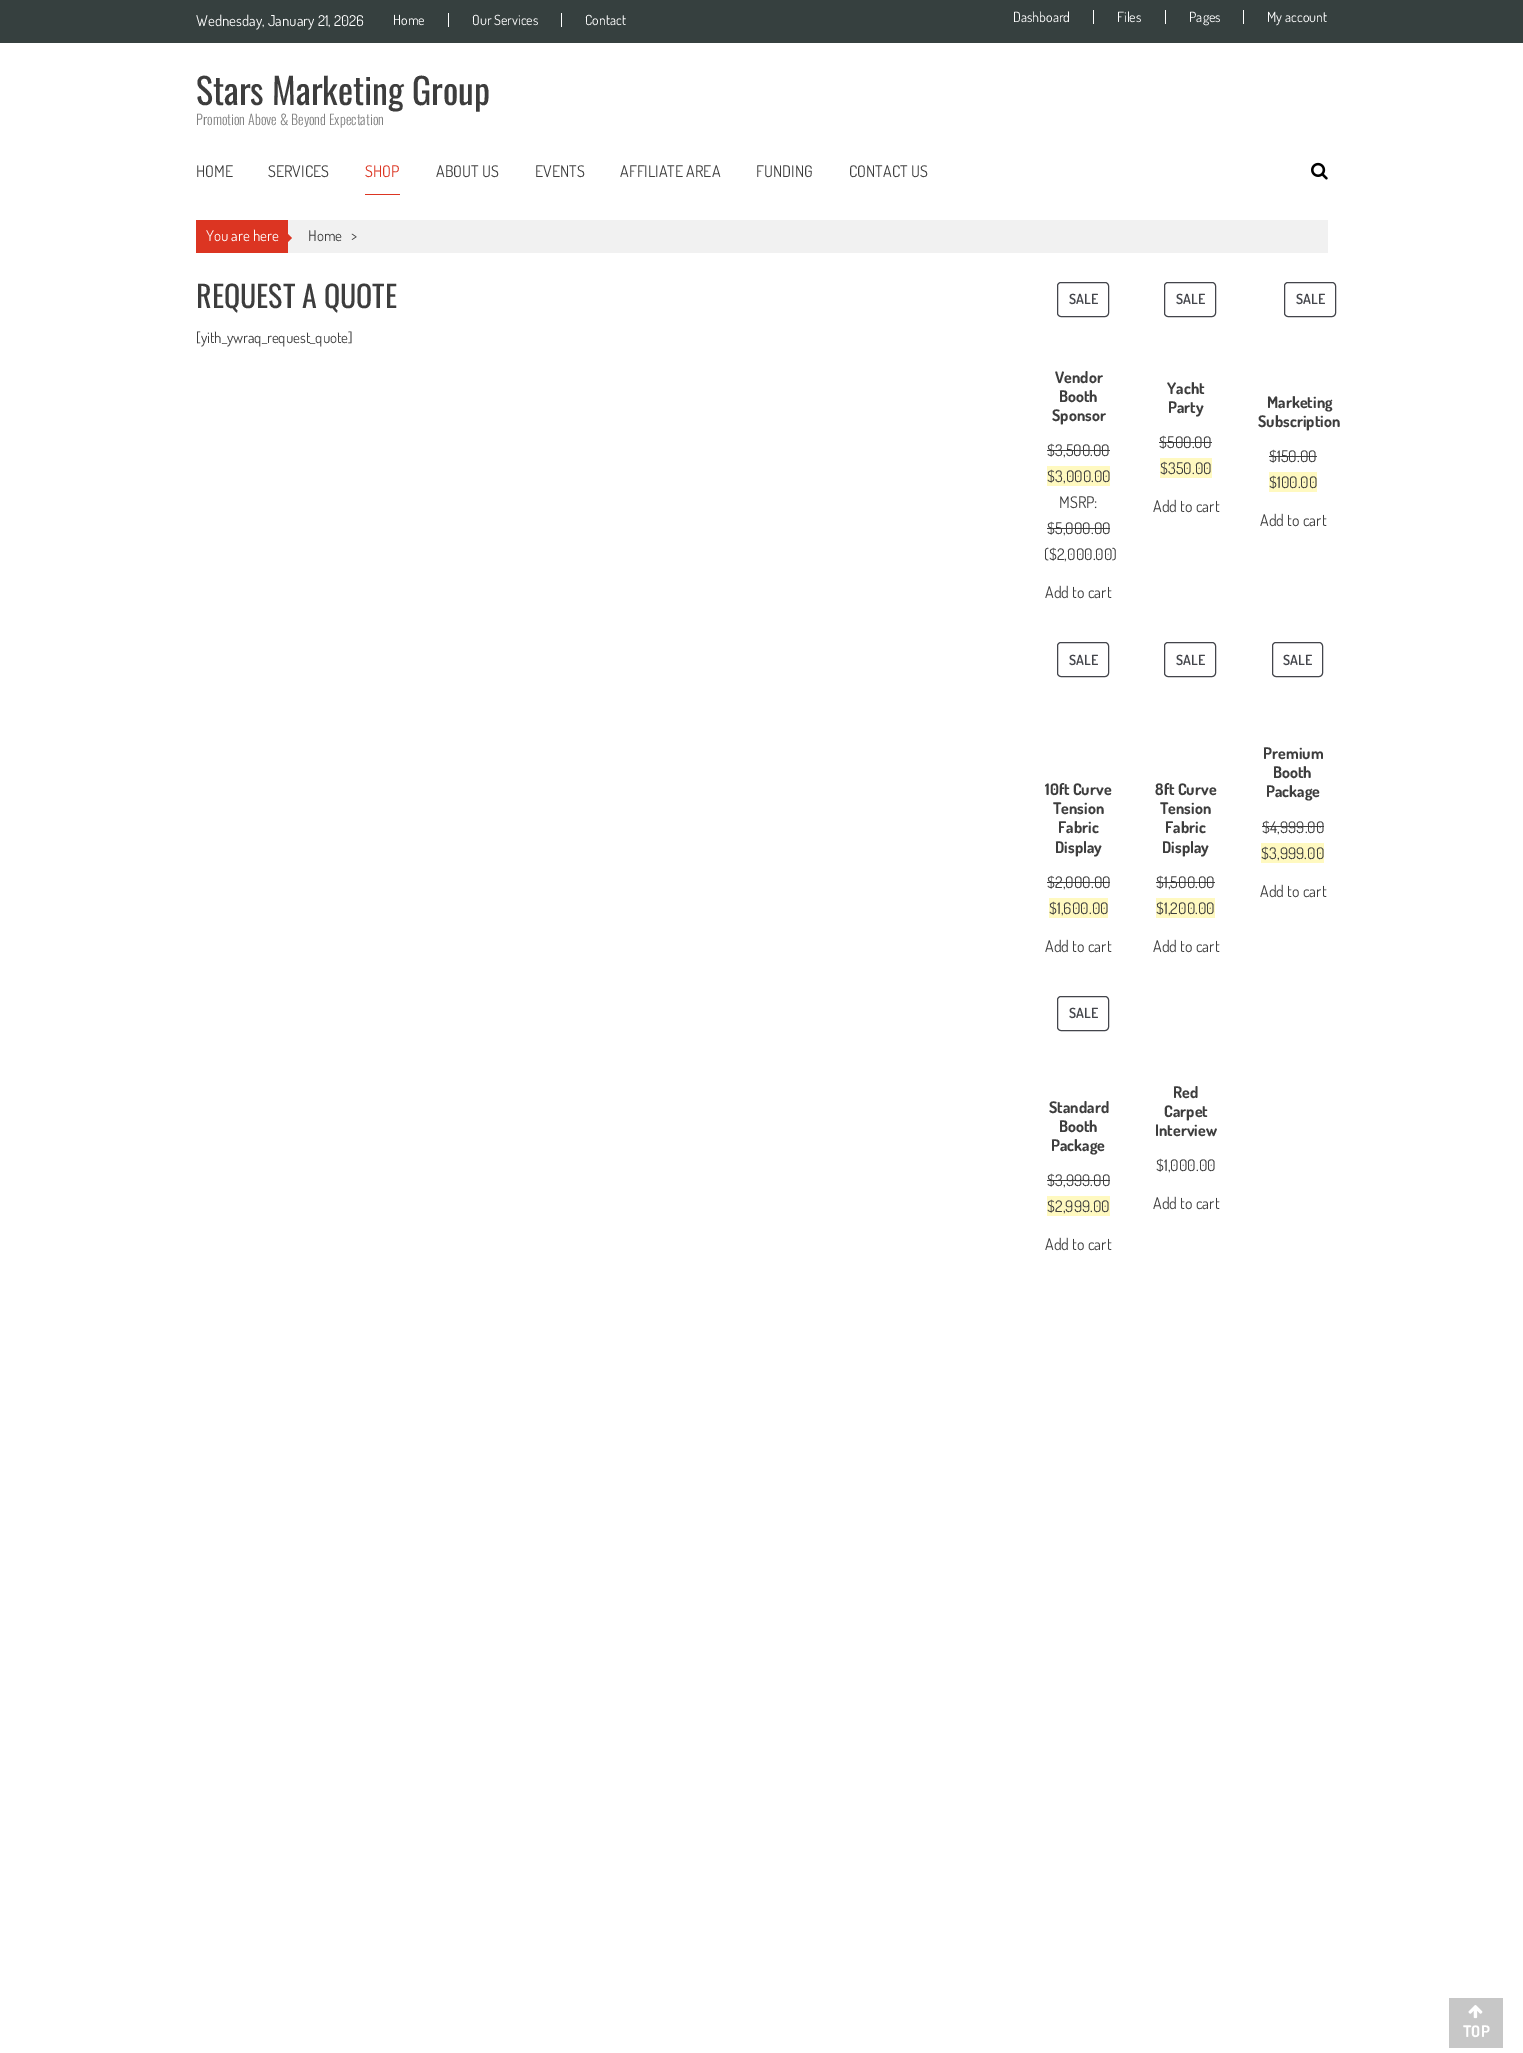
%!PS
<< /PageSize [1523 2053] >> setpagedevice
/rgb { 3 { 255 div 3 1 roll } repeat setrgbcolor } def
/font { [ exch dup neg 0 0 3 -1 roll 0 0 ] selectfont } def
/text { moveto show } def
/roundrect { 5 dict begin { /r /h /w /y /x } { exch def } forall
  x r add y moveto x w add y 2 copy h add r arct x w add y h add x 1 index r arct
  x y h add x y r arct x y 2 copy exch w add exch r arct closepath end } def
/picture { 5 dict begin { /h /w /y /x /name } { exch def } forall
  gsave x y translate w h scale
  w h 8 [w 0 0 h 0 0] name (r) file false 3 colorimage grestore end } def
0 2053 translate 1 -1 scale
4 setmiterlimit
255 255 255 rgb
0 0 1523 2053 rectfill
54 64 63 rgb
0 0 1523 43 rectfill
255 255 255 rgb
448 13 1 14 rectfill
561 13 1 14 rectfill
1093 10 1 14 rectfill
1165 10 1 14 rectfill
1243 10 1 14 rectfill
220 53 34 rgb
365 194 35 1 rectfill
(img_01.rgb) 1311 162 17 18 picture
241 241 241 rgb
288 220 1040 33 rectfill
220 53 34 rgb
196 220 92 33 rectfill
287 243 moveto 0 -10 rlineto 5 5 rlineto closepath fill
67 69 75 rgb
1057.5 282.5 51 34 3.5 roundrect stroke
61 61 61 rgb
1047 450 63 1 rectfill
255 249 192 rgb
1047 466 63 20 rectfill
61 61 61 rgb
1047 528 63 1 rectfill
67 69 75 rgb
1164.5 282.5 51 34 3.5 roundrect stroke
61 61 61 rgb
1159 442 53 1 rectfill
255 249 192 rgb
1160 458 52 20 rectfill
67 69 75 rgb
1284.5 282.5 51 34 3.5 roundrect stroke
61 61 61 rgb
1269 456 48 1 rectfill
255 249 192 rgb
1269 472 48 20 rectfill
67 69 75 rgb
1057.5 642.5 51 34 3.5 roundrect stroke
61 61 61 rgb
1047 882 63 1 rectfill
255 249 192 rgb
1049 898 59 20 rectfill
67 69 75 rgb
1164.5 642.5 51 34 3.5 roundrect stroke
61 61 61 rgb
1156 882 59 1 rectfill
255 249 192 rgb
1156 898 59 20 rectfill
67 69 75 rgb
1272.5 642.5 50 34 3.5 roundrect stroke
61 61 61 rgb
1262 826 8 1 rectfill
1270 826 54 1 rectfill
255 249 192 rgb
1261 843 63 20 rectfill
67 69 75 rgb
1057.5 996.5 51 34 3.5 roundrect stroke
61 61 61 rgb
1047 1180 63 1 rectfill
255 249 192 rgb
1047 1196 63 20 rectfill
199 199 199 rgb
1449 1998 54 50 rectfill
(img_02.rgb) 1468 2005 15 14 picture
/Dosis-Regular 15 font
255 255 255 rgb
(Wednesday, January 21, 2026) 196 26 text
/Dosis-Regular 14 font
(Home) 393 25 text
(Our Services) 472 25 text
(Contact) 585 25 text
(Dashboard) 1013 22 text
(Files) 1117 22 text
(Pages) 1189 22 text
(My account) 1267 22 text
/Oswald-Regular 36 font
61 61 61 rgb
(Stars Marketing Group) 196 105 text
/Oswald-Light 14 font
129 129 129 rgb
(Promotion Above & Beyond Expectation) 196 125 text
/Dosis-Regular 16 font
61 61 61 rgb
(HOME) 196 177 text
(SERVICES) 268 177 text
220 53 34 rgb
(SHOP) 365 177 text
61 61 61 rgb
(ABOUT US) 436 177 text
(EVENTS) 535 177 text
(AFFILIATE AREA) 620 177 text
(FUNDING) 756 177 text
(CONTACT US) 849 177 text
/Dosis-Regular 15 font
255 255 255 rgb
(You are here) 206 241 text
61 61 61 rgb
(Home) 308 241 text
(>) 351 241 text
/Oswald-Regular 30 font
(REQUEST A QUOTE) 196 308 text
/Dosis-Regular 15 font
([yith_ywraq_request_quote]) 196 343 text
/Dosis-SemiBold 14 font
67 69 75 rgb
(SALE) 1069 304 text
/Dosis-Bold 16 font
61 61 61 rgb
(Vendor) 1055 383 text
(Booth) 1059 402 text
(Sponsor) 1052 421 text
/Dosis-Regular 16 font
($3,500.00) 1047 456 text
($3,000.00) 1047 482 text
(MSRP:) 1059 508 text
($5,000.00) 1047 534 text
(\($2,000.00\)) 1044 560 text
(Add to cart) 1045 598 text
/Dosis-SemiBold 14 font
67 69 75 rgb
(SALE) 1176 304 text
/Dosis-Bold 16 font
61 61 61 rgb
(Yacht) 1167 394 text
(Party) 1168 413 text
/Dosis-Regular 16 font
($500.00) 1159 448 text
($350.00) 1160 474 text
(Add to cart) 1153 512 text
/Dosis-SemiBold 14 font
67 69 75 rgb
(SALE) 1296 304 text
/Dosis-Bold 16 font
61 61 61 rgb
(Marketing) 1267 408 text
(Subscription) 1258 427 text
/Dosis-Regular 16 font
($150.00) 1269 462 text
($100.00) 1269 488 text
(Add to cart) 1260 526 text
/Dosis-SemiBold 14 font
67 69 75 rgb
(SALE) 1069 665 text
/Dosis-Bold 16 font
61 61 61 rgb
(10ft Curve) 1045 795 text
(Tension) 1053 814 text
(Fabric) 1058 833 text
(Display) 1055 853 text
/Dosis-Regular 16 font
($2,000.00) 1047 888 text
($1,600.00) 1049 914 text
(Add to cart) 1045 952 text
/Dosis-SemiBold 14 font
67 69 75 rgb
(SALE) 1176 665 text
/Dosis-Bold 16 font
61 61 61 rgb
(8ft Curve) 1155 795 text
(Tension) 1160 814 text
(Fabric) 1165 833 text
(Display) 1162 853 text
/Dosis-Regular 16 font
($1,500.00) 1156 888 text
($1,200.00) 1156 914 text
(Add to cart) 1153 952 text
/Dosis-SemiBold 14 font
67 69 75 rgb
(SALE) 1283 665 text
/Dosis-Bold 16 font
61 61 61 rgb
(Premium) 1263 759 text
(Booth) 1273 778 text
(Package) 1266 797 text
/Dosis-Regular 16 font
($) 1262 833 text
(4,999.00) 1270 833 text
($3,999.00) 1261 859 text
(Add to cart) 1260 897 text
/Dosis-SemiBold 14 font
67 69 75 rgb
(SALE) 1069 1018 text
/Dosis-Bold 16 font
61 61 61 rgb
(Standard) 1049 1113 text
(Booth) 1059 1132 text
(Package) 1051 1151 text
/Dosis-Regular 16 font
($3,999.00) 1047 1186 text
($2,999.00) 1047 1212 text
(Add to cart) 1045 1250 text
/Dosis-Bold 16 font
(Red) 1173 1098 text
(Carpet) 1164 1117 text
(Interview) 1155 1136 text
/Dosis-Regular 16 font
($1,000.00) 1156 1171 text
(Add to cart) 1153 1209 text
/Dosis-Bold 16 font
255 255 255 rgb
(TOP) 1463 2037 text
showpage
